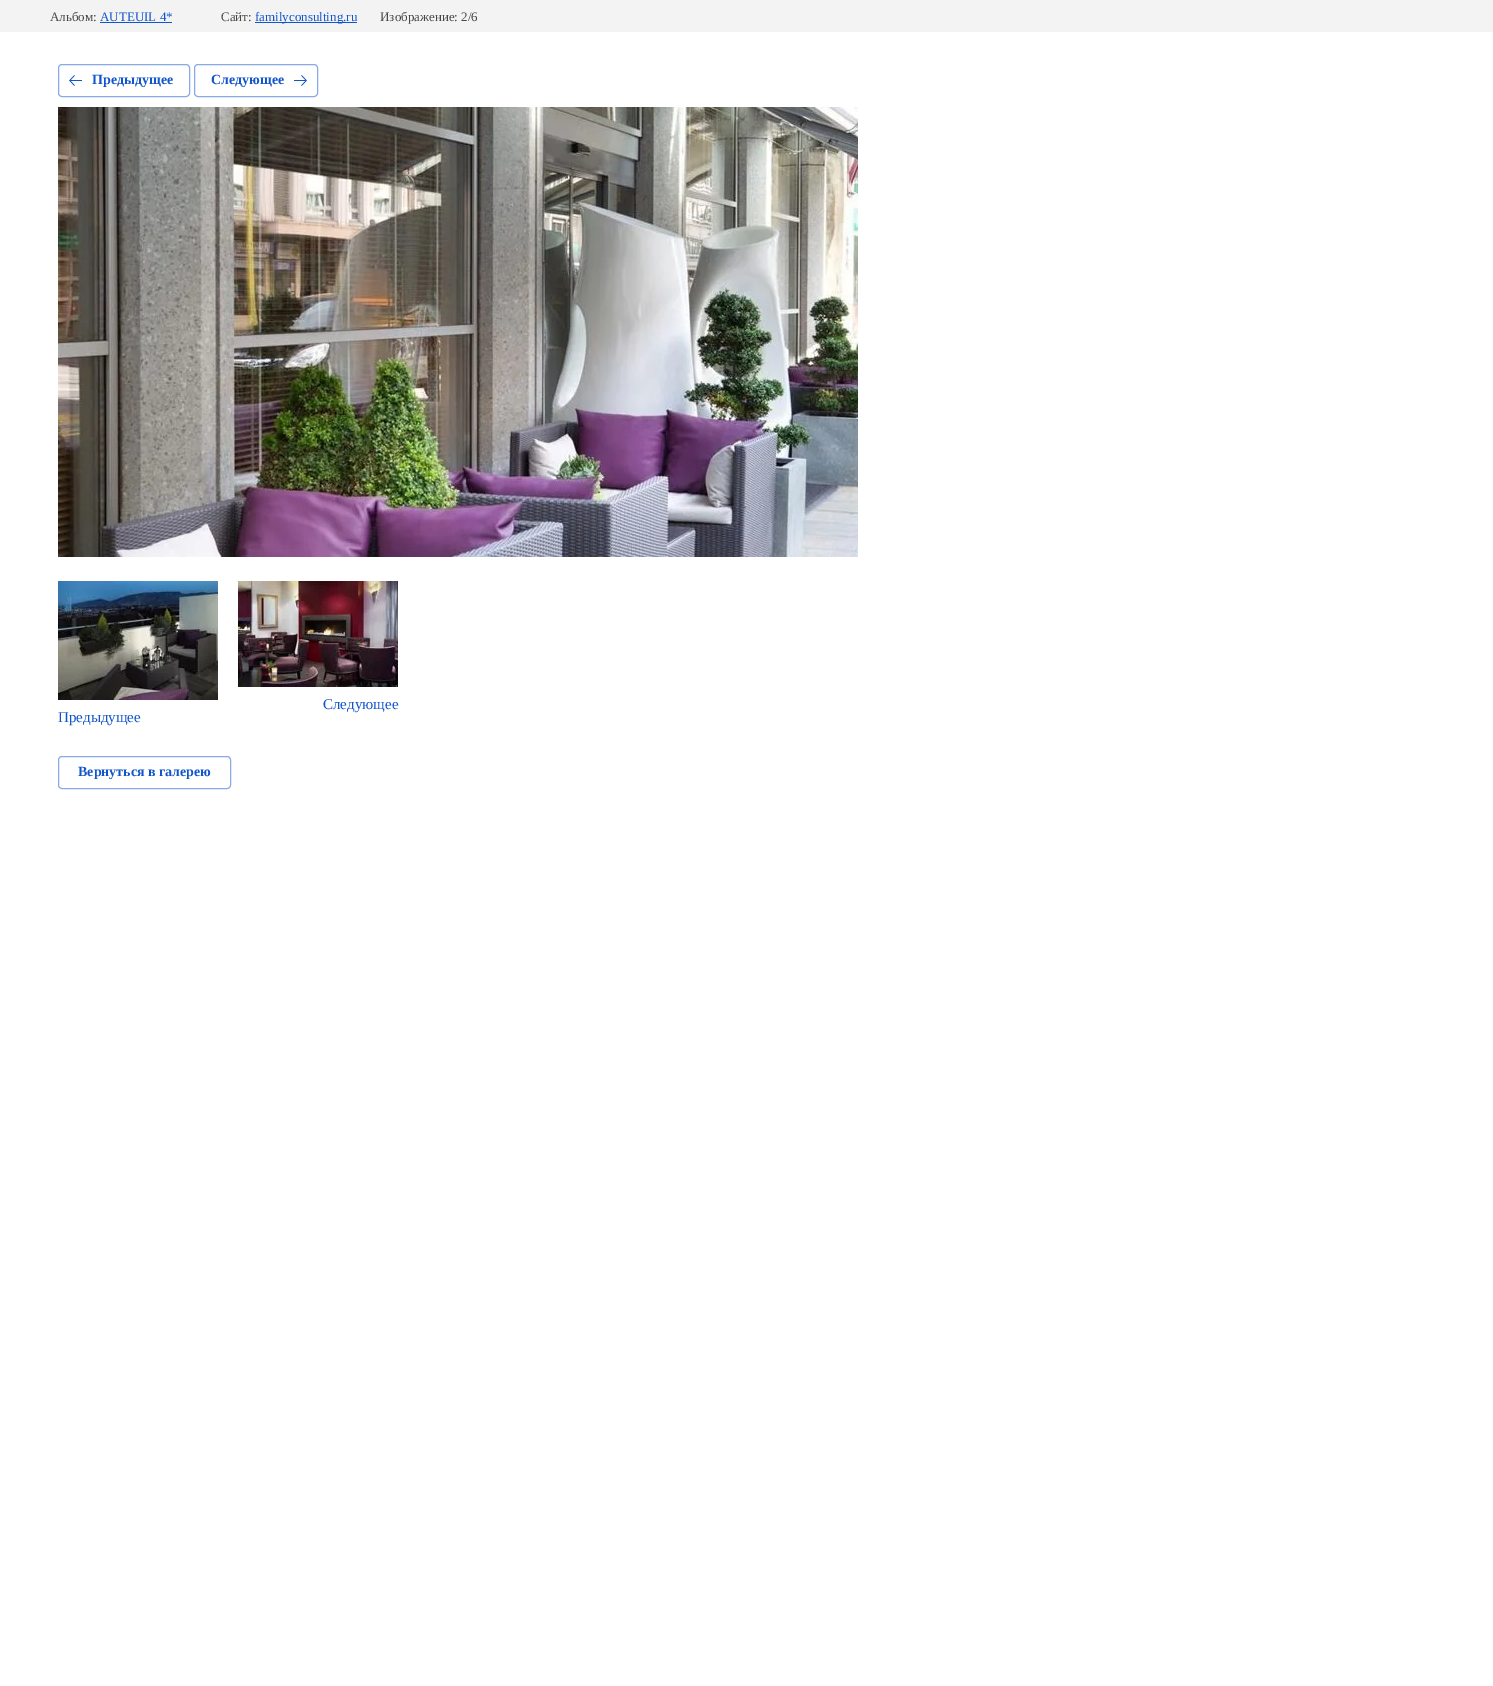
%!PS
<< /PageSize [1493 1686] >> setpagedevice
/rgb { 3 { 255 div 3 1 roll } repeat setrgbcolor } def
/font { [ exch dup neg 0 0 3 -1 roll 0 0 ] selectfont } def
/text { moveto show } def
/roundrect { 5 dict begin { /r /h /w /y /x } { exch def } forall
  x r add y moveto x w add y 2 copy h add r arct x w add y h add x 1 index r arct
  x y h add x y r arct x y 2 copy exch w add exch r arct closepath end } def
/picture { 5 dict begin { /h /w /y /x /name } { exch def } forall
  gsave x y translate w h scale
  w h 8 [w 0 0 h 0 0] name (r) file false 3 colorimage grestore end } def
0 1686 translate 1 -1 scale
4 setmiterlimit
255 255 255 rgb
0 0 1493 1686 rectfill
243 243 243 rgb
0 0 1493 32 rectfill
17 85 204 rgb
100 22 72 1 rectfill
255 22 102 1 rectfill
136 170 230 rgb
58.5 64.5 131 32 3.5 roundrect stroke
(img_01.rgb) 69 75 13 11 picture
194.5 64.5 123 32 3.5 roundrect stroke
(img_02.rgb) 294 75 13 11 picture
(img_03.rgb) 58 107 800 450 picture
(img_04.rgb) 238 581 160 106 picture
(img_05.rgb) 58 581 160 119 picture
58.5 756.5 172 32 3.5 roundrect stroke
/LiberationSerif-Regular 13 font
72 72 72 rgb
(Альбом:) 50 21 text
17 85 204 rgb
(AUTEUIL 4*) 100 21 text
72 72 72 rgb
(Сайт:) 221 21 text
17 85 204 rgb
(familyconsulting.ru) 255 21 text
72 72 72 rgb
(Изображение: 2/6) 380 21 text
/LiberationSerif-Bold 14 font
17 85 204 rgb
(Предыдущее) 92 84 text
(Следующее) 211 84 text
/LiberationSerif-Regular 15 font
(Следующее) 323 709 text
(Предыдущее) 58 722 text
/LiberationSerif-Bold 14 font
(Вернуться в галерею) 78 776 text
showpage
